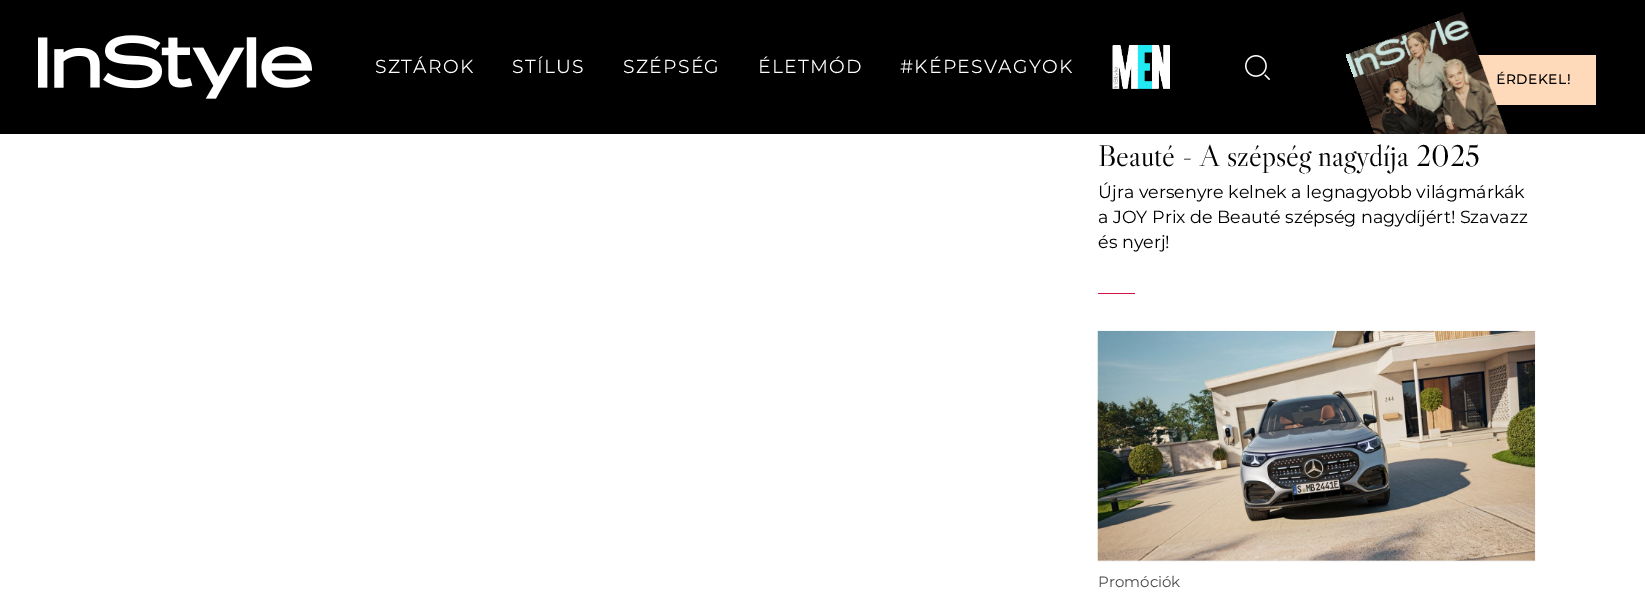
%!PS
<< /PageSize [1645 605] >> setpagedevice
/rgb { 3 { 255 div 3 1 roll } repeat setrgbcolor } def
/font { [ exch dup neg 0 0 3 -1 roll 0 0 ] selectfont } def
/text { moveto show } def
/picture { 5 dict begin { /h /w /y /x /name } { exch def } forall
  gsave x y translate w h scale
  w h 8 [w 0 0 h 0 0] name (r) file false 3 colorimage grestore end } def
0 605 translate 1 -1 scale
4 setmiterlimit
255 255 255 rgb
0 0 1645 605 rectfill
0 0 0 rgb
0 0 1645 134 rectfill
(img_01.rgb) 38 35 274 64 picture
(img_02.rgb) 1112 45 58 44 picture
(img_03.rgb) 1245 55 25 25 picture
254 218 186 rgb
1478 55 118 50 rectfill
211 18 69 rgb
1098 293 37 1 rectfill
229 230 230 rgb
1098.5 331.5 436 229 rectstroke
(img_05.rgb) 1097 330 438 231 picture
/Montserrat-Regular 18.75 font
255 255 255 rgb
375 73 moveto 1.25 0 (SZTÁROK) ashow
512 73 moveto 1.25 0 (STÍLUS) ashow
623 73 moveto 1.25 0 (SZÉPSÉG) ashow
758 73 moveto 1.25 0 (ÉLETMÓD) ashow
900 73 moveto 1.25 0 (#KÉPESVAGYOK) ashow
/Montserrat-Medium 13.75 font
0 0 0 rgb
1496 84 moveto 0.5 0 (ÉRDEKEL!) ashow
(img_04.rgb) 1346 12 162 122 picture
/LibreCaslonDisplay-Regular 30 font
(Beauté - A szépség nagydíja 2025) 1098 166 text
/Montserrat-Regular 17.5 font
(Újra versenyre kelnek a legnagyobb világmárkák) 1098 198 text
(a JOY Prix de Beauté szépség nagydíjért! Szavazz) 1098 223 text
(és nyerj!) 1098 248 text
/Montserrat-Regular 15 font
73 73 73 rgb
(Promóciók) 1098 587 text
showpage
